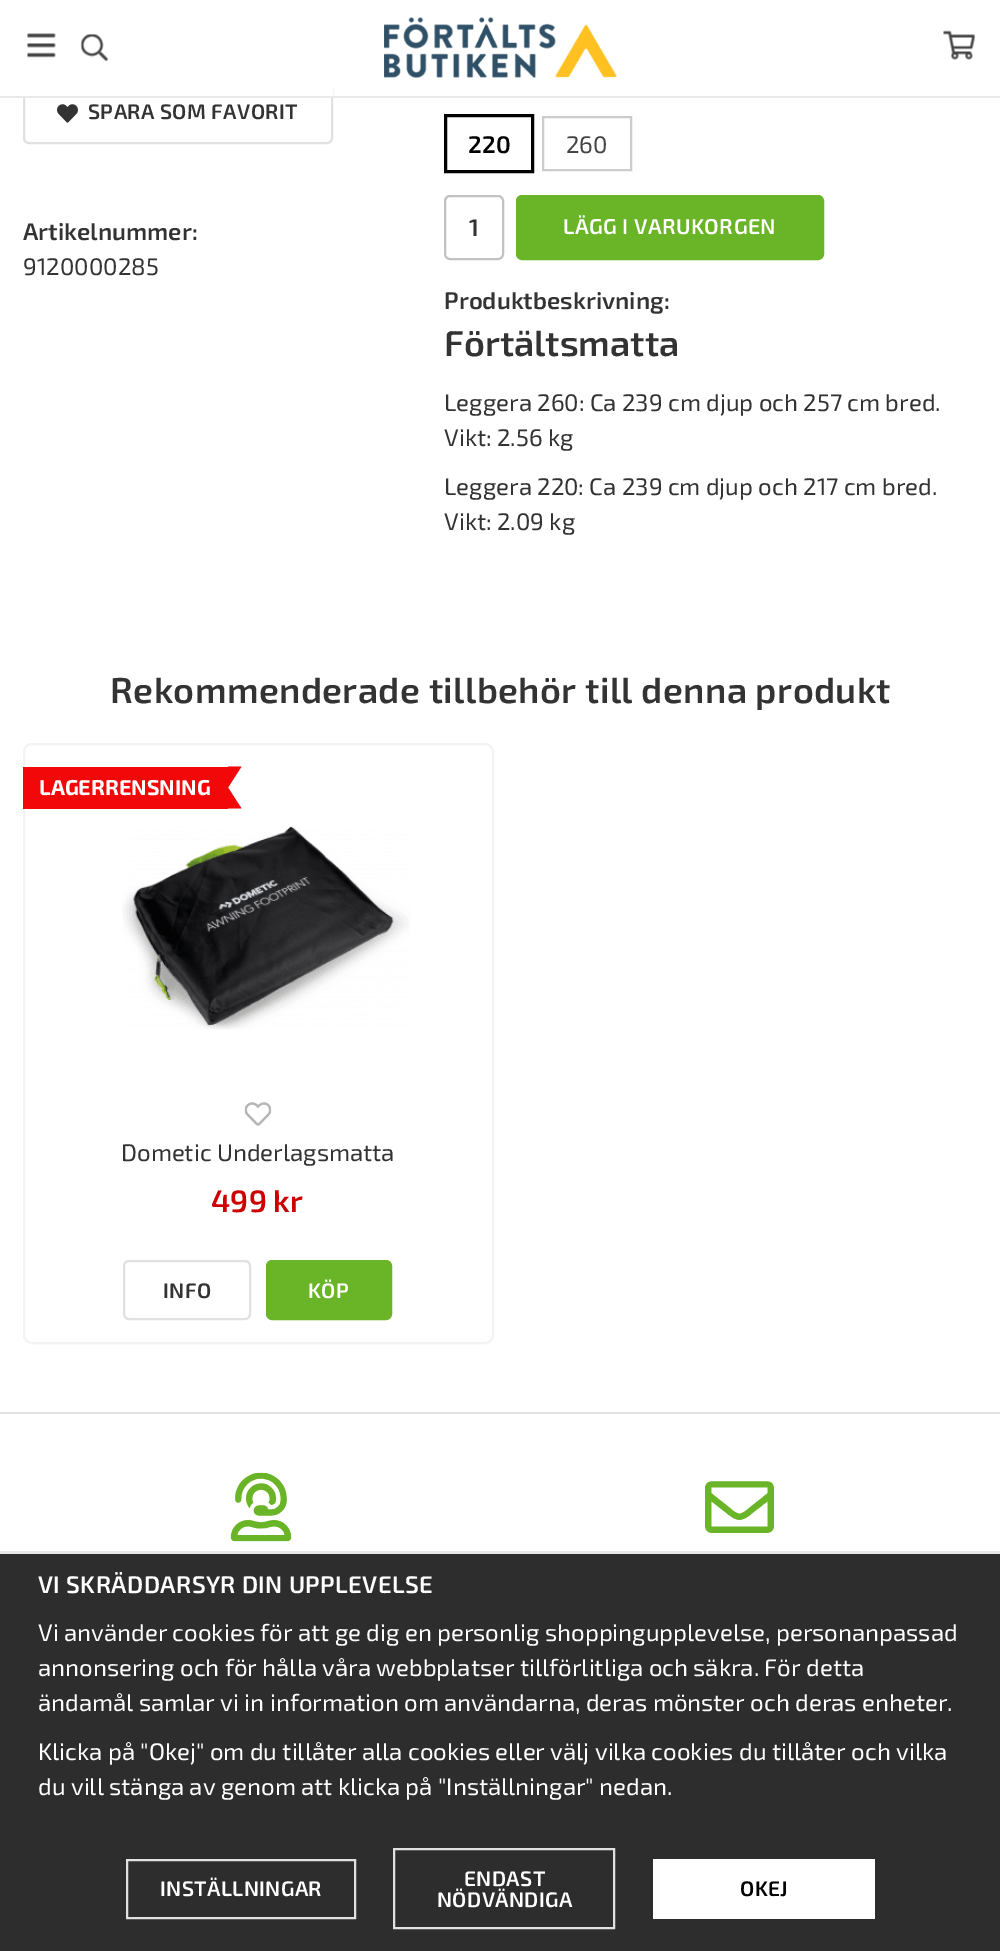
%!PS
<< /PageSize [1000 1951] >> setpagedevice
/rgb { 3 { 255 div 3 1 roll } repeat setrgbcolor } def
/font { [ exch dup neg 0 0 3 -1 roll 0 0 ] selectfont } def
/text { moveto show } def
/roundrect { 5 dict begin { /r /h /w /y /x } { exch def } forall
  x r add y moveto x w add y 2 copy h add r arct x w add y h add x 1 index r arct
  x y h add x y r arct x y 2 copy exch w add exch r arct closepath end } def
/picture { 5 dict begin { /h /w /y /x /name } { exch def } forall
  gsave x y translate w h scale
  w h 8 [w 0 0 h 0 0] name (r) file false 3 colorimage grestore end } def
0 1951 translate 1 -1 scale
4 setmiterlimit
255 255 255 rgb
0 0 1000 1951 rectfill
225 225 225 rgb
2 setlinewidth
24 82 308 61 5 roundrect stroke
255 255 255 rgb
23 81 310 15 rectfill
233 233 233 rgb
0 96 1000 2 rectfill
(img_01.rgb) 27 33 29 25 picture
(img_02.rgb) 80 33 29 29 picture
(img_03.rgb) 384 17 233 61 picture
(img_04.rgb) 943 30 33 30 picture
(img_05.rgb) 57 104 21 19 picture
0 0 0 rgb
3 setlinewidth
445.5 115.5 87 56 rectstroke
204 204 204 rgb
2 setlinewidth
543 117 88 53 rectstroke
194 194 194 rgb
445 196 58 63 5 roundrect stroke
106 180 39 rgb
517 196 306 63 5 roundrect gsave fill grestore
stroke
243 243 243 rgb
24 744 469 599 8 roundrect stroke
242 8 8 rgb
23 767 205 42 rectfill
228 766.5 moveto 13.5 0 rlineto -13.5 21 rlineto closepath fill
241.5 808.5 moveto -13.5 0 rlineto 0 -21 rlineto closepath fill
(img_06.rgb) 122 826 288 204 picture
(img_07.rgb) 244 1102 28 24 picture
225 225 225 rgb
124 1261 126 58 5 roundrect stroke
106 180 39 rgb
267 1261 124 58 5 roundrect gsave fill grestore
stroke
225 225 225 rgb
0 1412 1000 2 rectfill
(img_08.rgb) 230 1472 62 70 picture
(img_09.rgb) 705 1481 69 52 picture
45 45 45 rgb
0 1554 1000 397 rectfill
233 233 233 rgb
0 1551 1000 3 rectfill
225 225 225 rgb
127 1860 228 58 rectstroke
394 1849 220 79 rectstroke
255 255 255 rgb
653 1859 222 60 rectfill
/Exo2-SemiBold 21 font
51 51 51 rgb
88 119 moveto 0.4 0 (SPARA SOM FAVORIT) ashow
/Exo2-SemiBold 24 font
(Artikelnummer:) 23 240 text
/Exo2-Regular 24 font
(9120000285) 23 275 text
/Exo2-SemiBold 24 font
0 0 0 rgb
(220) 468 153 text
/Exo2-Regular 24 font
68 68 68 rgb
(260) 566 153 text
/Exo2-SemiBold 24 font
51 51 51 rgb
(1) 469 236 text
/Exo2-SemiBold 21.5 font
255 255 255 rgb
563 234 moveto 0.4 0 (LÄGG I VARUKORGEN) ashow
/Exo2-SemiBold 24 font
51 51 51 rgb
(Produktbeskrivning:) 444 309 text
/Exo2-SemiBold 36 font
(Förtältsmatta) 444 356 text
/Exo2-Regular 24 font
(Leggera 260: Ca 239 cm djup och 257 cm bred.) 444 411 text
(Vikt: 2.56 kg) 444 446 text
(Leggera 220: Ca 239 cm djup och 217 cm bred.) 444 495 text
(Vikt: 2.09 kg) 444 530 text
/Exo2-SemiBold 36 font
110 703 moveto 0.4 0 (Rekommenderade tillbehör till denna produkt) ashow
/Exo2-Bold 21.5 font
255 255 255 rgb
(LAGERRENSNING) 39 795 text
/Exo2-Regular 24 font
51 51 51 rgb
(Dometic Underlagsmatta) 121 1161 text
/Exo2-SemiBold 31 font
204 0 0 rgb
(499 kr) 211 1212 text
/Exo2-SemiBold 21 font
51 51 51 rgb
163 1298 moveto 0.4 0 (INFO) ashow
255 255 255 rgb
308 1298 moveto 0.4 0 (KÖP) ashow
/Exo2-SemiBold 24 font
38 1593 moveto 0.4 0 (VI SKRÄDDARSYR DIN UPPLEVELSE) ashow
/Exo2-Regular 24 font
(Vi använder cookies för att ge dig en personlig shoppingupplevelse, personanpassad) 38 1641 text
(annonsering och för hålla våra webbplatser tillförlitliga och säkra. För detta) 38 1676 text
(ändamål samlar vi in information om användarna, deras mönster och deras enheter.) 38 1711 text
(Klicka på "Okej" om du tillåter alla cookies eller välj vilka cookies du tillåter och vilka) 38 1760 text
(du vill stänga av genom att klicka på "Inställningar" nedan.) 38 1795 text
/Exo2-SemiBold 21 font
160 1896 moveto 0.4 0 (INSTÄLLNINGAR) ashow
464 1886 moveto 0.4 0 (ENDAST) ashow
437 1907 moveto 0.4 0 (NÖDVÄNDIGA) ashow
0 0 0 rgb
740 1896 moveto 0.4 0 (OKEJ) ashow
showpage
